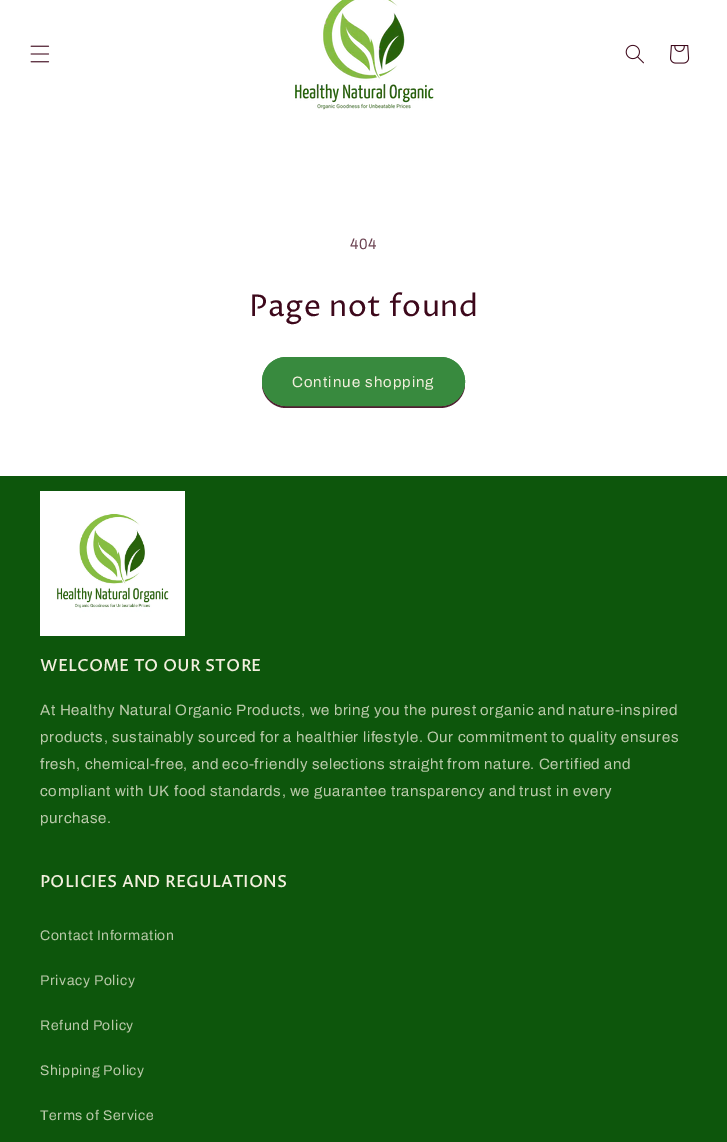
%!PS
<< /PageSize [727 1142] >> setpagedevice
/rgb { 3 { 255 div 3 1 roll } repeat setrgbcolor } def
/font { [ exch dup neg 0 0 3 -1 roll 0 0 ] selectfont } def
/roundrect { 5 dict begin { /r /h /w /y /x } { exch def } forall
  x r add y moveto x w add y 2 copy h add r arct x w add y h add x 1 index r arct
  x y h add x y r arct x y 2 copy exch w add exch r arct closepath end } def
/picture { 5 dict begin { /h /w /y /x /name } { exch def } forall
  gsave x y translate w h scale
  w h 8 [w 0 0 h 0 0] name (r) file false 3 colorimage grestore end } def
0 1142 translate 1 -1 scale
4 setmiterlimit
255 255 255 rgb
0 0 727 1142 rectfill
(img_01.rgb) 30 45 20 18 picture
(img_02.rgb) 295 0 139 110 picture
(img_03.rgb) 625 44 19 20 picture
(img_04.rgb) 670 45 20 19 picture
80 33 50 rgb
262 382 moveto 0 2 rlineto 0 13 11 24 24 24 rcurveto 154 0 rlineto 14 0 25 -11 25 -24 rcurveto 0 -2 rlineto -1 14 -11 24 -25 24 rcurveto -154 0 rlineto -13 0 -23 -10 -24 -24 rcurveto closepath fill
56 138 62 rgb
262 357 203 49 24.5 roundrect fill
2 setlinewidth
263 358 201 47 23.5 roundrect stroke
13 86 12 rgb
0 476 727 666 rectfill
(img_05.rgb) 40 491 145 145 picture
/Archivo-Regular 15 font
110 70 84 rgb
350 249 moveto 0.6 0 (404) ashow
/ProzaLibre-Regular 30 font
61 8 27 rgb
249 316 moveto 0.6 0 (Page not found) ashow
/Archivo-Regular 15 font
242 239 221 rgb
292 387 moveto 1 0 (Continue shopping) ashow
/ProzaLibre-Bold 16 font
40 671 moveto 0.6 0 (WELCOME TO OUR STORE) ashow
/Archivo-Regular 15 font
185 201 169 rgb
40 715 moveto 0.6 0 (At Healthy Natural Organic Products, we bring you the purest organic and nature-inspired) ashow
40 742 moveto 0.6 0 (products, sustainably sourced for a healthier lifestyle. Our commitment to quality ensures) ashow
40 769 moveto 0.6 0 (fresh, chemical-free, and eco-friendly selections straight from nature. Certified and) ashow
40 796 moveto 0.6 0 (compliant with UK food standards, we guarantee transparency and trust in every) ashow
40 823 moveto 0.6 0 (purchase.) ashow
/ProzaLibre-Bold 16 font
242 239 221 rgb
40 887 moveto 0.6 0 (POLICIES AND REGULATIONS) ashow
/Archivo-Regular 14 font
185 201 169 rgb
40 940 moveto 0.6 0 (Contact Information) ashow
40 985 moveto 0.6 0 (Privacy Policy) ashow
40 1030 moveto 0.6 0 (Refund Policy) ashow
40 1075 moveto 0.6 0 (Shipping Policy) ashow
40 1120 moveto 0.6 0 (Terms of Service) ashow
showpage
